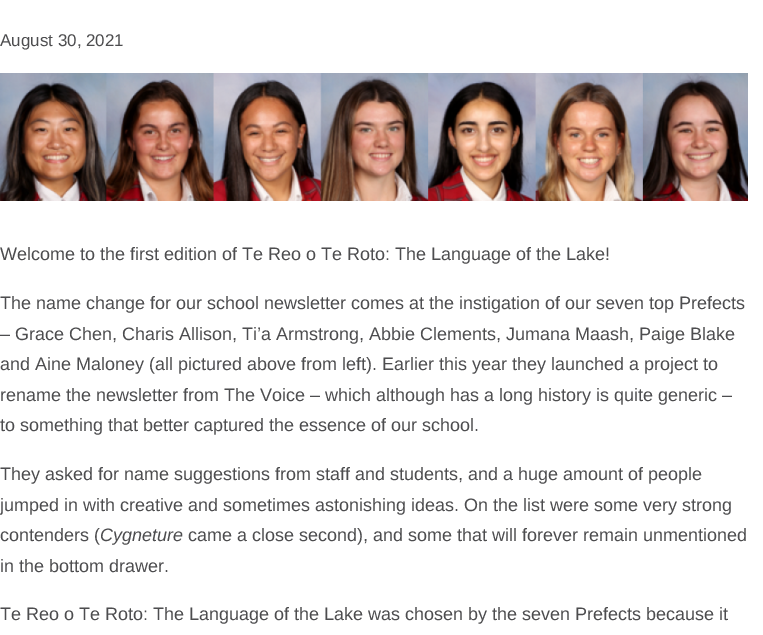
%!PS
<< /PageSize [763 635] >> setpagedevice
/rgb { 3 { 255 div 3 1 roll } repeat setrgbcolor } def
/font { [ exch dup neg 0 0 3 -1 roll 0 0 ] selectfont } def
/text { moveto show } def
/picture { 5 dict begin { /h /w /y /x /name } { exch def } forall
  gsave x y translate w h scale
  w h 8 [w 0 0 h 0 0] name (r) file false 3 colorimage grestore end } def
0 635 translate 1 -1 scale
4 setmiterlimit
255 255 255 rgb
0 0 763 635 rectfill
(img_01.rgb) 0 73 748 128 picture
/LiberationSans-Regular 17 font
77 77 79 rgb
(August 30, 2021) 0 46 text
/LiberationSans-Regular 18 font
(Welcome to the first edition of Te Reo o Te Roto: The Language of the Lake!) 0 260 text
(The name change for our school newsletter comes at the instigation of our seven top Prefects) 0 309 text
(– Grace Chen, Charis Allison, Ti’a Armstrong, Abbie Clements, Jumana Maash, Paige Blake) 0 340 text
(and Aine Maloney \(all pictured above from left\). Earlier this year they launched a project to) 0 370 text
(rename the newsletter from The Voice – which although has a long history is quite generic –) 0 401 text
(to something that better captured the essence of our school.) 0 431 text
(They asked for name suggestions from staff and students, and a huge amount of people) 0 480 text
(jumped in with creative and sometimes astonishing ideas. On the list were some very strong) 0 511 text
(contenders \() 0 541 text
/LiberationSans-Italic 18 font
(Cygneture) 100 541 text
/LiberationSans-Regular 18 font
(came a close second\), and some that will forever remain unmentioned) 188 541 text
(in the bottom drawer.) 0 572 text
(Te Reo o Te Roto: The Language of the Lake was chosen by the seven Prefects because it) 0 620 text
showpage
